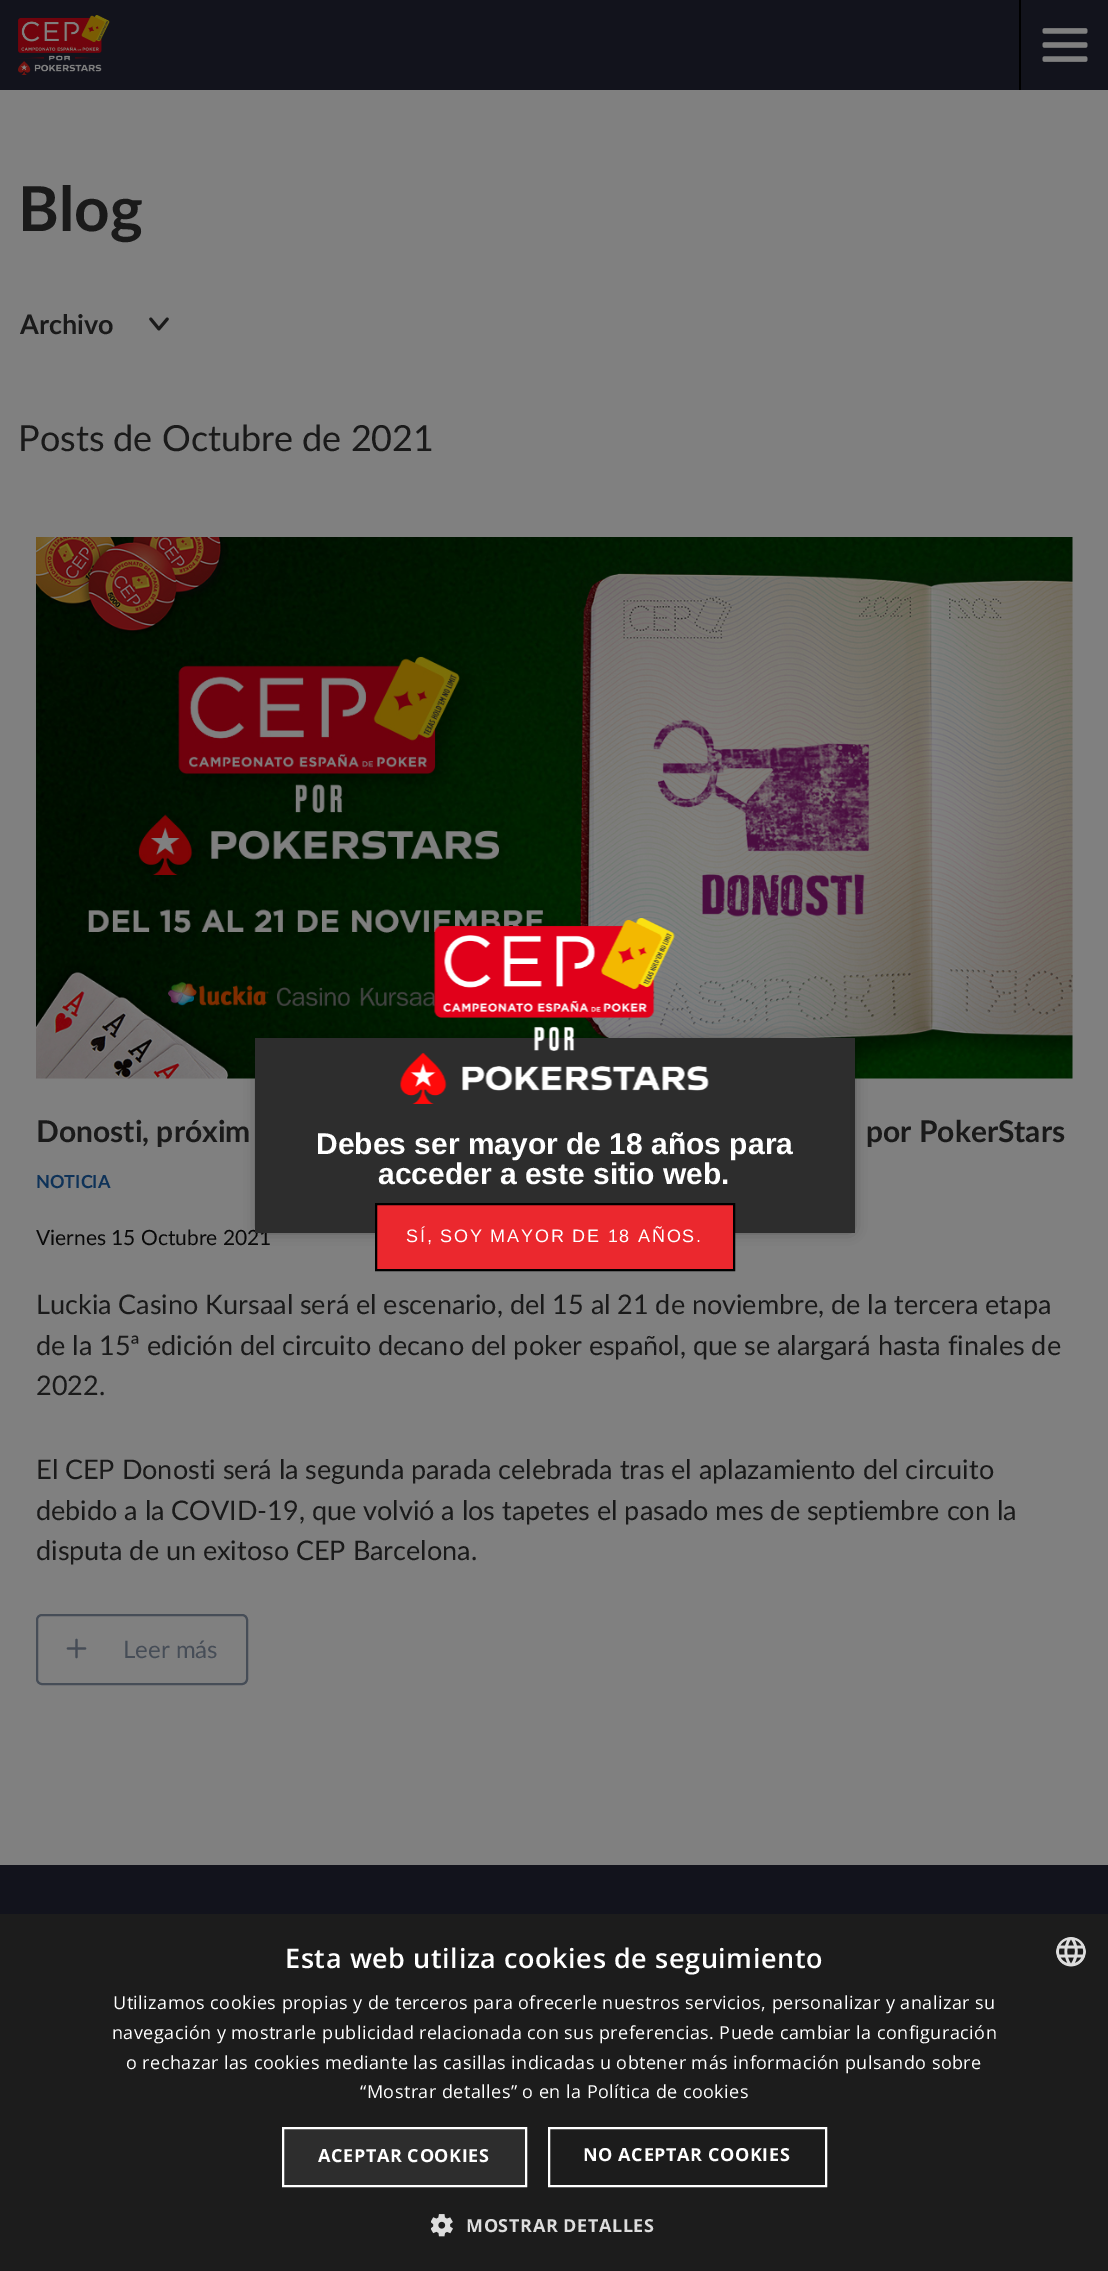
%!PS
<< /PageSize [1108 2271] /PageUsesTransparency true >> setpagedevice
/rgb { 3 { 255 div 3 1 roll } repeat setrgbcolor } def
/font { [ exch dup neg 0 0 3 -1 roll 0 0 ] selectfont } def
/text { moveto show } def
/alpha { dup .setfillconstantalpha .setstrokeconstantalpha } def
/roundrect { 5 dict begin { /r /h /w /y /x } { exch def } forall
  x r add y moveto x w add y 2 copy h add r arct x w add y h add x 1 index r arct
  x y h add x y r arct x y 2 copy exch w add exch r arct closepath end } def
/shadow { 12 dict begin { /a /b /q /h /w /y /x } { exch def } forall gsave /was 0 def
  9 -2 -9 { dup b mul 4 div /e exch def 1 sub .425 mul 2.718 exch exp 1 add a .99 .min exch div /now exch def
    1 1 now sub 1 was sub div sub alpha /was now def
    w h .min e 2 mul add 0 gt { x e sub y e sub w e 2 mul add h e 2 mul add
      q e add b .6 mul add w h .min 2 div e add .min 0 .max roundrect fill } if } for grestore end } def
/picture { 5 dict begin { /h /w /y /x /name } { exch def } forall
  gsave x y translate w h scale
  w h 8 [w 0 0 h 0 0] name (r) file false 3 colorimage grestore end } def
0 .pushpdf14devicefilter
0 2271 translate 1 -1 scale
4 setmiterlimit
18 19 28 rgb
0 0 1108 2271 rectfill
(img_01.rgb) 18 15 92 60 picture
0 0 0 rgb
1019 0 2 90 rectfill
(img_02.rgb) 1042 28 46 34 picture
128 128 128 rgb
0 90 1108 1775 rectfill
(img_03.rgb) 149 317 20 14 picture
(img_04.rgb) 36 537 1037 542 picture
70 77 87 rgb
2 setlinewidth
37 1615 210 69 5 roundrect stroke
(img_05.rgb) 66 1638 21 21 picture
0 0 0 rgb
260 1043 591 186 0 7.5 0.5 shadow
28 28 28 rgb
0 1914 1108 357 rectfill
(img_07.rgb) 1056 1937 30 30 picture
45 45 45 rgb
283 2128 moveto 243 0 rlineto 0 58 rlineto -243 0 rlineto closepath gsave fill grestore
255 255 255 rgb
stroke
549 2128 277 58 rectstroke
(img_08.rgb) 431 2214 22 23 picture
/Lato-Bold 62 font
26 26 26 rgb
(Blog) 18 231 text
/Lato-Bold 27 font
(Archivo) 20 334 text
/Lato-Regular 36 font
(Posts de Octubre de 2021) 18 451 text
/Lato-Bold 30 font
(Donosti, próxim) 36 1142 text
(por PokerStars) 866 1142 text
/Lato-Bold 18 font
14 50 88 rgb
(NOTICIA) 36 1188 text
/Lato-Regular 21 font
9 9 9 rgb
(Viernes 15 Octubre 2021) 36 1245 text
/Lato-Regular 27 font
26 26 26 rgb
(Luckia Casino Kursaal será el escenario, del 15 al 21 de noviembre, de la tercera etapa) 36 1314 text
(de la 15ª edición del circuito decano del poker español, que se alargará hasta finales de) 36 1355 text
(2022.) 36 1395 text
(El CEP Donosti será la segunda parada celebrada tras el aplazamiento del circuito) 36 1479 text
(debido a la COVID-19, que volvió a los tapetes el pasado mes de septiembre con la) 36 1520 text
(disputa de un exitoso CEP Barcelona.) 36 1560 text
/Lato-Regular 24 font
70 77 87 rgb
(Leer más) 123 1658 text
45 45 45 rgb
255 1038 600 195 rectfill
(img_06.rgb) 400 918 309 186 picture
/LiberationSans-Bold 30 font
255 255 255 rgb
(Debes ser mayor de 18 años para) 316 1154 text
(acceder a este sitio web.) 378 1184 text
235 40 46 rgb
376 1204 moveto 358 0 rlineto 0 66 rlineto -358 0 rlineto closepath gsave fill grestore
0 0 0 rgb
stroke
/LiberationSans-Regular 18 font
255 255 255 rgb
406 1242 moveto 1.8 0 (SÍ, SOY MAYOR DE 18 AÑOS.) ashow
/OpenSans-SemiBold 27 font
285 1968 moveto 0.6 0 (Esta web utiliza cookies de seguimiento) ashow
/OpenSans-Regular 18 font
113 2009 moveto 0.45 0 (Utilizamos cookies propias y de terceros para ofrecerle nuestros servicios, personalizar y analizar su) ashow
112 2039 moveto 0.45 0 (navegación y mostrarle publicidad relacionada con sus preferencias. Puede cambiar la configuración) ashow
126 2069 moveto 0.45 0 (o rechazar las cookies mediante las casillas indicadas u obtener más información pulsando sobre) ashow
360 2098 moveto 0.45 0 (“Mostrar detalles” o en la Política de cookies) ashow
/OpenSans-Bold 18 font
318 2162 moveto 0.6 0 (ACEPTAR COOKIES) ashow
583 2161 moveto 0.6 0 (NO ACEPTAR COOKIES) ashow
221 221 221 rgb
466 2232 moveto 0.6 0 (MOSTRAR DETALLES) ashow
.poppdf14devicefilter showpage
